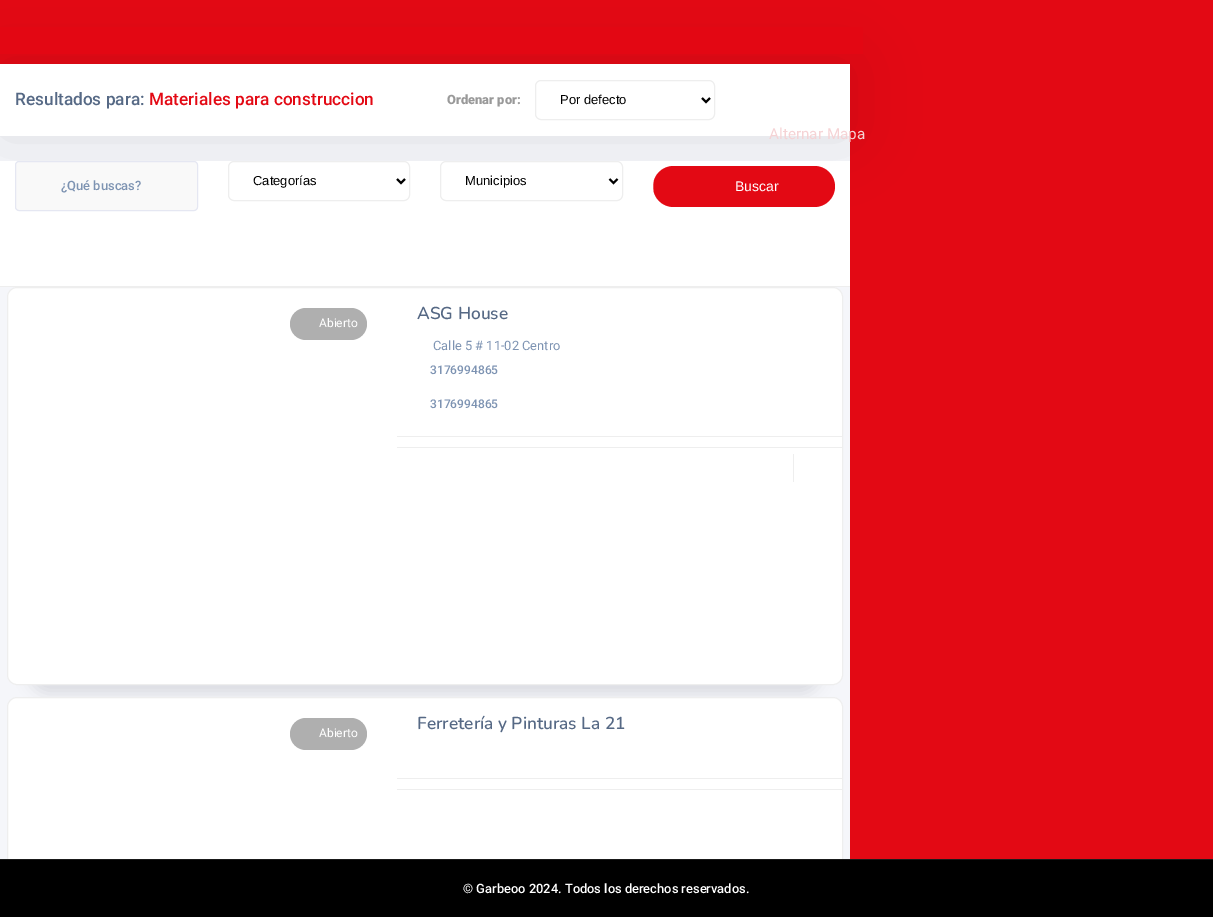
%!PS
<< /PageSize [1213 917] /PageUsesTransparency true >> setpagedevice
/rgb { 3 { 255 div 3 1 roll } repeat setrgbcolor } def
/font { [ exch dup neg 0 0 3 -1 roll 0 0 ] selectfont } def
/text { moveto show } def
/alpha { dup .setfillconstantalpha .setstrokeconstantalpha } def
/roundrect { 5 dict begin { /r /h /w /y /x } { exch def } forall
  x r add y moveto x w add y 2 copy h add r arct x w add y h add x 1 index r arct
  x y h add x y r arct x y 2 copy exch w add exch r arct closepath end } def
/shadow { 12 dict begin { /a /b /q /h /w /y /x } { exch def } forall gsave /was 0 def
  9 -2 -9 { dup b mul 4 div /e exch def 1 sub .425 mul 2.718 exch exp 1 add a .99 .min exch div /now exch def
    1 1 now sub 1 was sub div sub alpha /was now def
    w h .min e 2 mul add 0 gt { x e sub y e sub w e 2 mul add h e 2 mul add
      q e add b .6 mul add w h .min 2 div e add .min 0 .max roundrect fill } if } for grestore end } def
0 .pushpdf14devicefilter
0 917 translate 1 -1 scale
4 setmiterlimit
227 9 20 rgb
0 0 1213 917 rectfill
245 246 250 rgb
0 136 850 723 rectfill
0 0 0 rgb
0 64 850 72 0 32.5 0.09 shadow
227 7 19 rgb
0 27 863 27 rectfill
255 255 255 rgb
0 64 850 72 rectfill
238 238 238 rgb
535.5 80.5 179 39 5.5 roundrect stroke
0 0 0 rgb
2 setlinewidth
702 98 moveto 4 4 rlineto 4 -4 rlineto stroke
255 255 255 rgb
0 161 850 125 rectfill
238 238 238 rgb
0 286 850 1 rectfill
249 249 249 rgb
15.5 161.5 182 49 3.5 roundrect gsave fill grestore
229 231 242 rgb
1 setlinewidth
stroke
238 238 238 rgb
228.5 161.5 181 39 5.5 roundrect stroke
0 0 0 rgb
2 setlinewidth
397 179 moveto 4 4 rlineto 4 -4 rlineto stroke
238 238 238 rgb
1 setlinewidth
440.5 161.5 182 39 5.5 roundrect stroke
0 0 0 rgb
2 setlinewidth
609.5 179 moveto 4 4 rlineto 4 -4 rlineto stroke
227 9 20 rgb
653 166 182 41 20.5 roundrect fill
0.3 alpha
255 255 255 rgb
653 181 1 10 rectfill
1 alpha
37 44 65 rgb
28 644 794 50 25 7 0.12 shadow
255 255 255 rgb
7.5 287.5 835 397 9.5 roundrect gsave fill grestore
238 238 238 rgb
1 setlinewidth
stroke
175 175 175 rgb
290 308 77 32 16 roundrect fill
238 238 238 rgb
397 436 445 1 rectfill
397 447 445 1 rectfill
793 454 1 28 rectfill
255 255 255 rgb
7.5 697.5 835 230 9.5 roundrect gsave fill grestore
238 238 238 rgb
stroke
175 175 175 rgb
290 718 77 32 16 roundrect fill
238 238 238 rgb
397 778 445 1 rectfill
397 789 445 1 rectfill
0 0 0 rgb
0 860 1213 57 rectfill
26 26 26 rgb
0 859 1213 1 rectfill
/Roboto-Medium 17.25 font
86 105 133 rgb
(Resultados para:) 15 105 text
227 9 20 rgb
(Materiales para construccion) 149 105 text
/Roboto-Black 12.9 font
153 153 153 rgb
(Ordenar por:) 447 104 text
/LiberationSans-Regular 13 font
0 0 0 rgb
(Por defecto) 560 104 text
/Roboto-Regular 15.25 font
245 211 213 rgb
(Alternar Mapa) 769 139 text
/Roboto-Medium 12.9 font
125 147 178 rgb
(¿Qué buscas?) 61 190 text
/LiberationSans-Regular 13 font
0 0 0 rgb
(Categorías) 253 185 text
(Municipios) 465 185 text
/LiberationSans-Regular 14 font
255 255 255 rgb
(Buscar) 735 191 text
/Roboto-Regular 12 font
(Abierto) 319 327 text
/Nunito-SemiBold 17.25 font
86 105 133 rgb
(ASG House) 417 319 text
/Roboto-Regular 12.9 font
125 147 178 rgb
(Calle 5 # 11-02 Centro) 433 350 text
/Roboto-Medium 12 font
(3176994865) 430 374 text
(3176994865) 430 408 text
/Roboto-Regular 12 font
255 255 255 rgb
(Abierto) 319 737 text
/Nunito-SemiBold 17.25 font
86 105 133 rgb
(Ferretería y Pinturas La 21) 417 729 text
/Roboto-Medium 12.9 font
255 255 255 rgb
(© Garbeoo 2024. Todos los derechos reservados.) 463 893 text
.poppdf14devicefilter showpage
